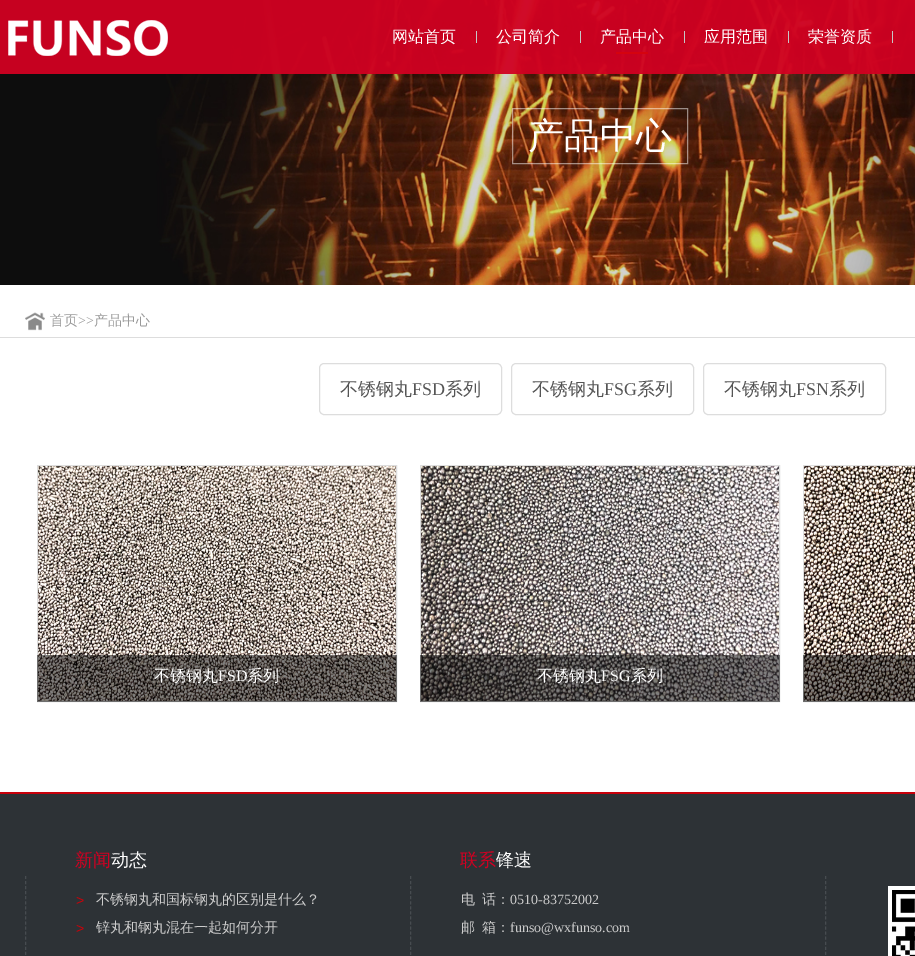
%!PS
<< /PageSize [915 956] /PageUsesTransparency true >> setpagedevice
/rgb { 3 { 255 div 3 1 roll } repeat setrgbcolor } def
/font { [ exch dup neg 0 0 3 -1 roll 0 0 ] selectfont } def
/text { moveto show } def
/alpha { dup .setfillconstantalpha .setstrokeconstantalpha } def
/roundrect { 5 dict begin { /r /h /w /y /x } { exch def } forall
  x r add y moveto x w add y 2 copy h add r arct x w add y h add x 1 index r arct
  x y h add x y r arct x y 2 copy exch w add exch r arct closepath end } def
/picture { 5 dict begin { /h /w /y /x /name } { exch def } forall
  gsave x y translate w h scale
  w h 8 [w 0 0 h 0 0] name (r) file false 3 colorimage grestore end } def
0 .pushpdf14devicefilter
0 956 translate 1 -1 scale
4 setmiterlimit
255 255 255 rgb
0 0 915 956 rectfill
(img_02.rgb) 0 0 915 285 picture
0.95 alpha
208 0 33 rgb
0 0 915 74 rectfill
1 alpha
(img_01.rgb) 8 20 160 36 picture
198 198 198 rgb
476 31 1 12 rectfill
580 31 1 12 rectfill
213 3 15 rgb
616 52 32 2 rectfill
198 198 198 rgb
684 31 1 12 rectfill
788 31 1 12 rectfill
892 31 1 12 rectfill
0.5 alpha
255 255 255 rgb
512.5 108.5 175 55 rectstroke
1 alpha
221 221 221 rgb
0 337 915 1 rectfill
(img_03.rgb) 25 312 20 19 picture
319.5 363.5 182 51 4.5 roundrect stroke
511.5 363.5 182 51 4.5 roundrect stroke
703.5 363.5 182 51 4.5 roundrect stroke
37.5 465.5 359 236 rectstroke
(img_04.rgb) 38 466 358 235 picture
0.5 alpha
0 0 0 rgb
37 655 360 47 rectfill
1 alpha
221 221 221 rgb
420.5 465.5 359 236 rectstroke
(img_05.rgb) 421 466 358 235 picture
0.5 alpha
0 0 0 rgb
420 655 360 47 rectfill
1 alpha
221 221 221 rgb
803.5 465.5 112 236 rectstroke
(img_06.rgb) 804 466 111 235 picture
0.5 alpha
0 0 0 rgb
803 655 112 47 rectfill
1 alpha
45 50 54 rgb
0 794 915 162 rectfill
200 0 11 rgb
0 792 915 2 rectfill
71 76 80 rgb
[3 2.06] 0 setdash
25.5 876 moveto 0 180 rlineto stroke
410.5 876 moveto 0 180 rlineto stroke
825.5 876 moveto 0 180 rlineto stroke
(img_07.rgb) 888 886 27 70 picture
/WenQuanYiZenHei-Medium 16 font
255 255 255 rgb
(网站首页) 392 42 text
(公司简介) 496 42 text
(产品中心) 600 42 text
(应用范围) 704 42 text
(荣誉资质) 808 42 text
/WenQuanYiZenHei-Medium 36 font
(产品中心) 528 148 text
/WenQuanYiZenHei-Medium 14 font
153 153 153 rgb
(首页) 50 325 text
/LiberationSerif-Regular 14 font
(>>) 78 325 text
/WenQuanYiZenHei-Medium 14 font
(产品中心) 94 325 text
/WenQuanYiZenHei-Medium 18 font
85 85 85 rgb
(不锈钢丸) 340 395 text
/LiberationSerif-Regular 18 font
(FSD) 412 395 text
/WenQuanYiZenHei-Medium 18 font
(系列) 445 395 text
(不锈钢丸) 532 395 text
/LiberationSerif-Regular 18 font
(FSG) 604 395 text
/WenQuanYiZenHei-Medium 18 font
(系列) 637 395 text
(不锈钢丸) 724 395 text
/LiberationSerif-Regular 18 font
(FSN) 796 395 text
/WenQuanYiZenHei-Medium 18 font
(系列) 829 395 text
/WenQuanYiZenHei-Medium 16 font
255 255 255 rgb
(不锈钢丸) 154 681 text
/LiberationSerif-Regular 16 font
(FSD) 218 681 text
/WenQuanYiZenHei-Medium 16 font
(系列) 247 681 text
(不锈钢丸) 537 681 text
/LiberationSerif-Regular 16 font
(FSG) 601 681 text
/WenQuanYiZenHei-Medium 16 font
(系列) 631 681 text
/WenQuanYiZenHei-Medium 18 font
208 0 33 rgb
(新闻) 75 866 text
255 255 255 rgb
(动态) 111 866 text
/LiberationSans-Regular 14 font
202 1 9 rgb
(>) 76 905 text
/WenQuanYiZenHei-Medium 14 font
204 204 204 rgb
(不锈钢丸和国标钢丸的区别是什么？) 96 904 text
/LiberationSans-Regular 14 font
202 1 9 rgb
(>) 76 933 text
/WenQuanYiZenHei-Medium 14 font
204 204 204 rgb
(锌丸和钢丸混在一起如何分开) 96 932 text
/WenQuanYiZenHei-Medium 18 font
208 0 33 rgb
(联系) 460 866 text
255 255 255 rgb
(锋速) 496 866 text
/WenQuanYiZenHei-Medium 14 font
204 204 204 rgb
(电) 461 904 text
(话：) 482 904 text
/LiberationSerif-Regular 14 font
(0510-83752002) 510 904 text
/WenQuanYiZenHei-Medium 14 font
(邮) 461 932 text
(箱：) 482 932 text
/LiberationSerif-Regular 14 font
(funso@wxfunso.com) 510 932 text
.poppdf14devicefilter showpage
